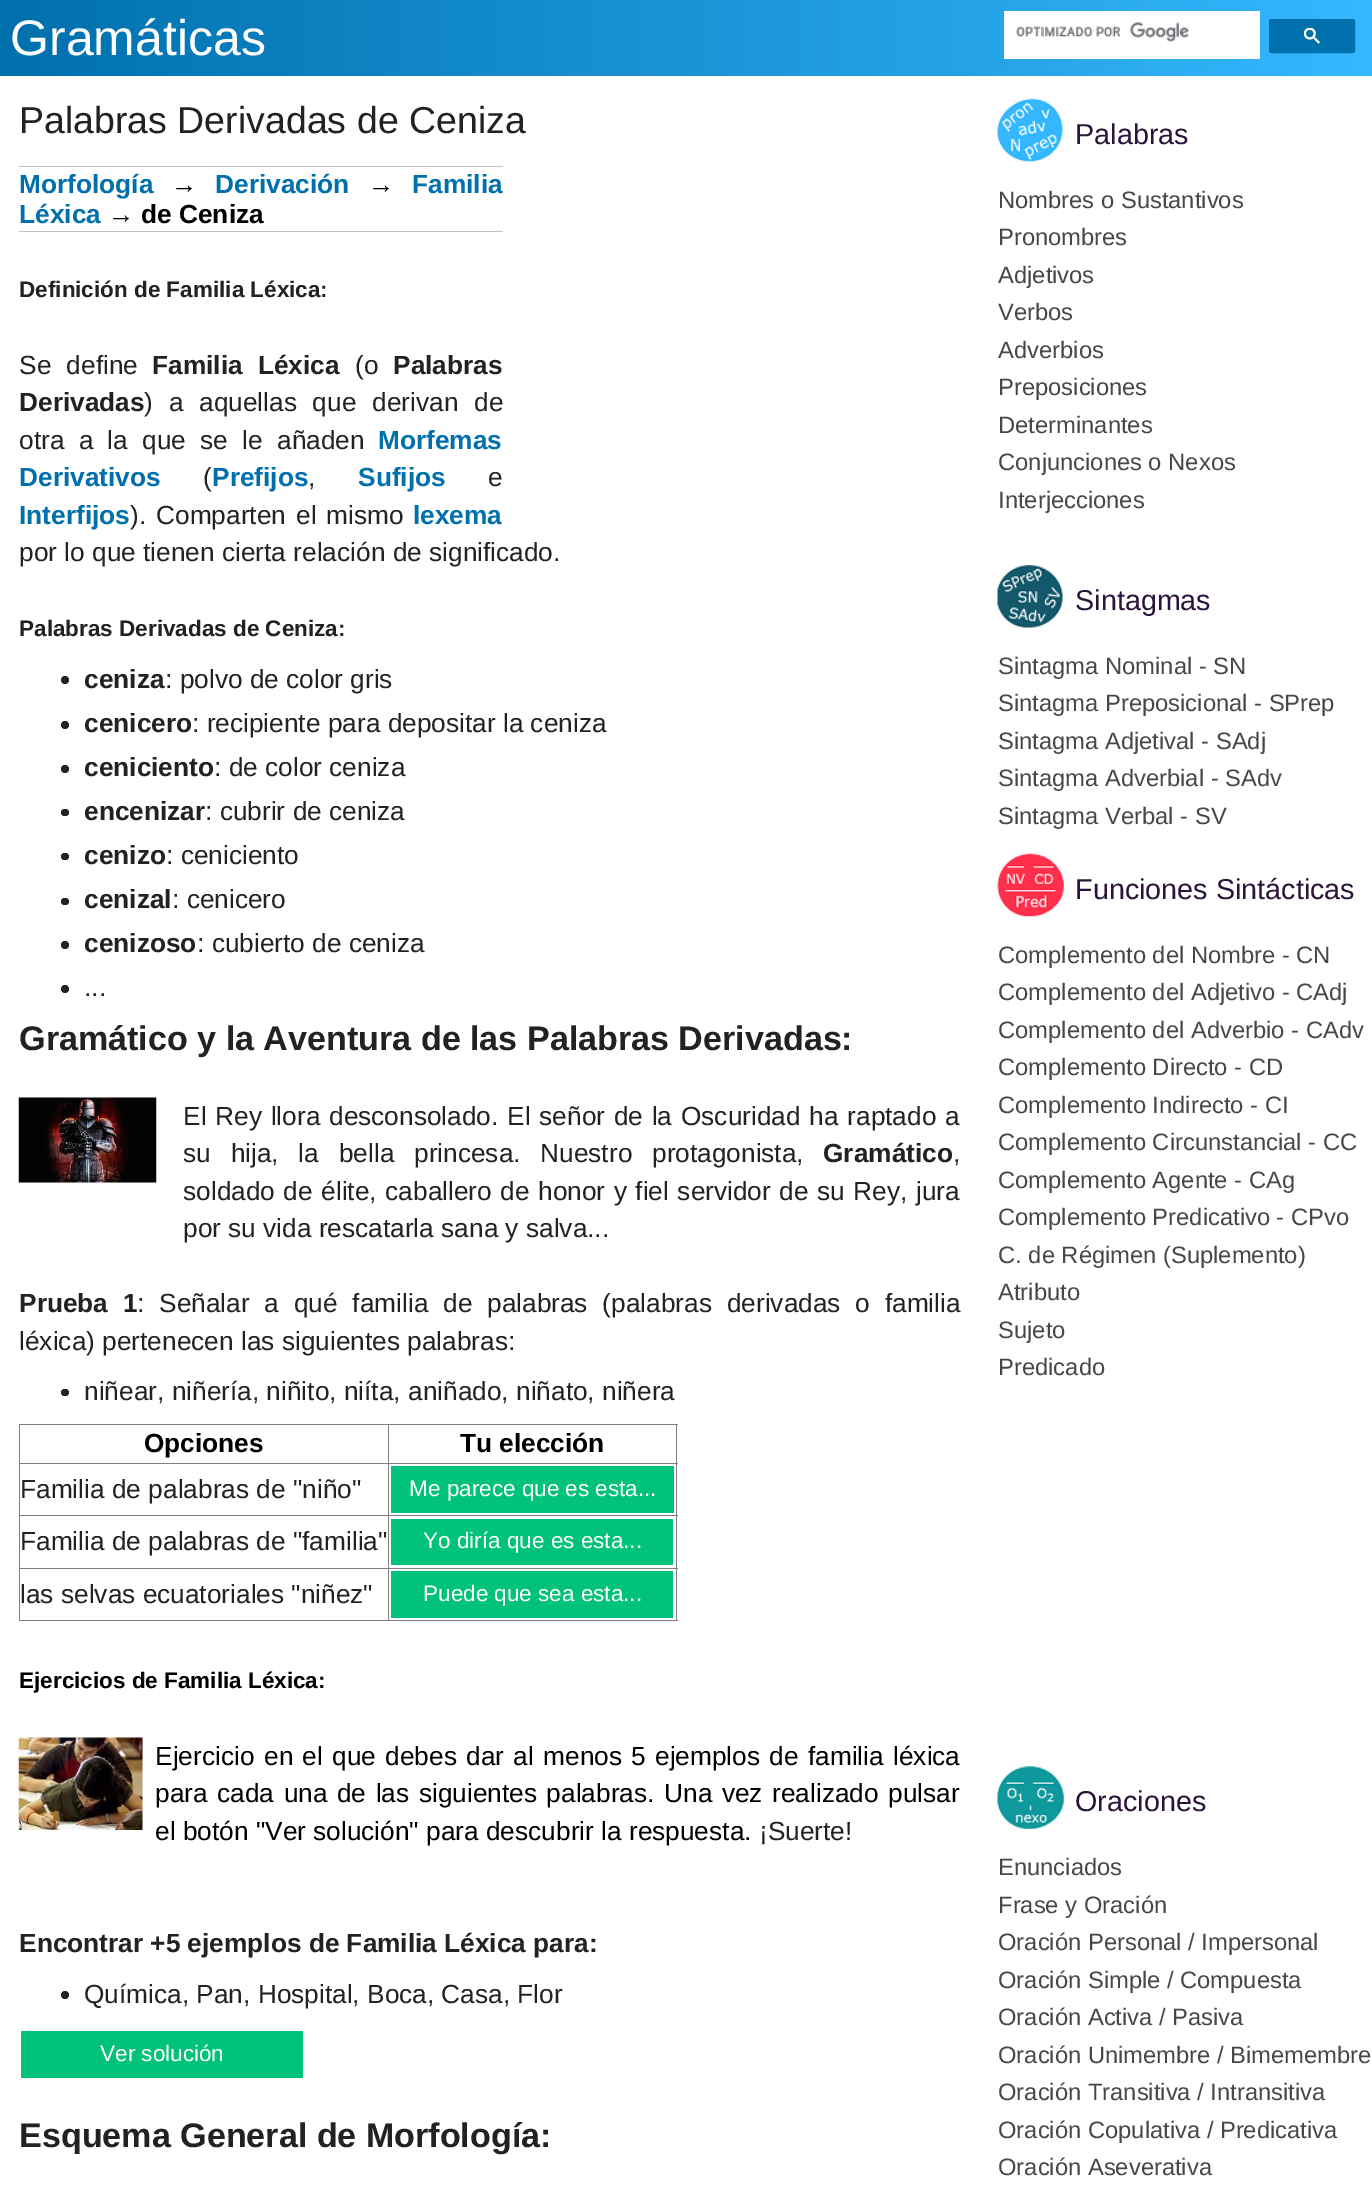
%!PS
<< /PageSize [1372 2186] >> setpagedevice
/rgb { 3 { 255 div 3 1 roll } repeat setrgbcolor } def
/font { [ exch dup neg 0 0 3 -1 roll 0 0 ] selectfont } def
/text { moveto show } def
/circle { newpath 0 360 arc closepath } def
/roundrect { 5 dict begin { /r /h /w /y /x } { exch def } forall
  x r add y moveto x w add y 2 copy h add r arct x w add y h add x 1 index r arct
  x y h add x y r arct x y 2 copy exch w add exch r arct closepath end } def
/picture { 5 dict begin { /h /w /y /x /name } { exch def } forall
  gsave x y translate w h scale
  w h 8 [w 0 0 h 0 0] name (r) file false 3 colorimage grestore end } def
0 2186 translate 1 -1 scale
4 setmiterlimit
255 255 255 rgb
0 0 1372 2186 rectfill
gsave 0 0 moveto 1372 0 rlineto 0 76 rlineto -1372 0 rlineto closepath clip newpath
<< /ShadingType 2 /ColorSpace /DeviceRGB /Coords [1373 38 0 38] /Extend [true true] /Function << /FunctionType 2 /Domain [0 1] /C0 [0.208 0.722 1] /C1 [0 0.439 0.678] /N 1 >> >> shfill grestore
1004 11 256 48 rectfill
(img_01.rgb) 1016 22 173 20 picture
0 112 173 rgb
1269.5 19.5 85 33 2 roundrect gsave fill grestore
stroke
(img_02.rgb) 1304 28 16 16 picture
205 191 188 rgb
19 166 484 1 rectfill
19 231 484 1 rectfill
34 34 34 rgb
65 680 4 circle fill
65 725 4 circle fill
65 769 4 circle fill
61 809 8 7 3.5 roundrect fill
61 853 8 7 3.5 roundrect fill
61 898 8 7 3.5 roundrect fill
65 945 4 circle fill
65 989 4 circle fill
(img_03.rgb) 18 1097 139 86 picture
61 1389 8 7 3.5 roundrect fill
128 128 128 rgb
19 1424 659 1 rectfill
676 1424 1 197 rectfill
19 1620 659 1 rectfill
19 1424 1 197 rectfill
388 1463 290 1 rectfill
388 1515 290 1 rectfill
388 1568 290 1 rectfill
388 1568 1 53 rectfill
19 1568 370 1 rectfill
388 1515 1 54 rectfill
19 1515 370 1 rectfill
388 1463 1 53 rectfill
19 1463 370 1 rectfill
388 1424 1 40 rectfill
0 194 122 rgb
391 1466 283 47 rectfill
391 1519 282 46 rectfill
391 1571 282 47 rectfill
(img_04.rgb) 18 1737 125 93 picture
34 34 34 rgb
65 1995 4 circle fill
0 194 122 rgb
21 2031 282 47 rectfill
(img_05.rgb) 997 98 66 64 picture
(img_06.rgb) 997 565 66 63 picture
(img_07.rgb) 997 853 67 64 picture
(img_08.rgb) 997 1766 67 63 picture
/LiberationSans-Regular 50 font
254 254 254 rgb
(Gramáticas) 10 55 text
/LiberationSans-Regular 37.5 font
34 34 34 rgb
(Palabras Derivadas de Ceniza) 19 133 text
/LiberationSans-Bold 26.25 font
0 112 173 rgb
(Morfología) 19 193 text
/LiberationSans-Regular 26.25 font
0 0 0 rgb
(→) 171 193 text
/LiberationSans-Bold 26.25 font
0 112 173 rgb
(Derivación) 215 193 text
/LiberationSans-Regular 26.25 font
0 0 0 rgb
(→) 368 193 text
/LiberationSans-Bold 26.25 font
0 112 173 rgb
(Familia) 412 193 text
(Léxica) 19 223 text
/LiberationSans-Regular 26.25 font
0 0 0 rgb
(→) 108 223 text
/LiberationSans-Bold 26.25 font
(de Ceniza) 141 223 text
/LiberationSans-Bold 22.5 font
34 34 34 rgb
(Definición de Familia Léxica:) 19 297 text
/LiberationSans-Regular 26.25 font
19 374 moveto 8 0 32 (Se define) widthshow
/LiberationSans-Bold 26.25 font
152 374 moveto 8 0 32 (Familia Léxica) widthshow
/LiberationSans-Regular 26.25 font
(\(o) 355 374 text
/LiberationSans-Bold 26.25 font
(Palabras) 393 374 text
(Derivadas) 19 411 text
/LiberationSans-Regular 26.25 font
144 411 moveto 8.5 0 32 (\) a aquellas que derivan de) widthshow
19 449 moveto 7 0 32 (otra a la que se le añaden) widthshow
/LiberationSans-Bold 26.25 font
0 112 173 rgb
(Morfemas) 378 449 text
(Derivativos) 19 486 text
/LiberationSans-Regular 26.25 font
34 34 34 rgb
(\() 203 486 text
/LiberationSans-Bold 26.25 font
0 112 173 rgb
(Prefijos) 212 486 text
/LiberationSans-Regular 26.25 font
34 34 34 rgb
(,) 308 486 text
/LiberationSans-Bold 26.25 font
0 112 173 rgb
(Sufijos) 358 486 text
/LiberationSans-Regular 26.25 font
34 34 34 rgb
(e) 488 486 text
/LiberationSans-Bold 26.25 font
0 112 173 rgb
(Interfijos) 19 524 text
/LiberationSans-Regular 26.25 font
34 34 34 rgb
(\).) 130 524 text
156 524 moveto 3 0 32 (Comparten el) widthshow
(mismo) 326 524 text
/LiberationSans-Bold 26.25 font
0 112 173 rgb
(lexema) 413 524 text
/LiberationSans-Regular 26.25 font
34 34 34 rgb
(por lo que tienen cierta relación de significado.) 19 561 text
/LiberationSans-Bold 22.5 font
(Palabras Derivadas de Ceniza:) 19 636 text
/LiberationSans-Bold 26.25 font
(ceniza) 84 688 text
/LiberationSans-Regular 26.25 font
(: polvo de color gris) 165 688 text
/LiberationSans-Bold 26.25 font
(cenicero) 84 732 text
/LiberationSans-Regular 26.25 font
(: recipiente para depositar la ceniza) 192 732 text
/LiberationSans-Bold 26.25 font
(ceniciento) 84 776 text
/LiberationSans-Regular 26.25 font
(: de color ceniza) 214 776 text
/LiberationSans-Bold 26.25 font
(encenizar) 84 820 text
/LiberationSans-Regular 26.25 font
(: cubrir de ceniza) 205 820 text
/LiberationSans-Bold 26.25 font
(cenizo) 84 864 text
/LiberationSans-Regular 26.25 font
(: ceniciento) 166 864 text
/LiberationSans-Bold 26.25 font
(cenizal) 84 908 text
/LiberationSans-Regular 26.25 font
(: cenicero) 172 908 text
/LiberationSans-Bold 26.25 font
(cenizoso) 84 952 text
/LiberationSans-Regular 26.25 font
(: cubierto de ceniza) 197 952 text
(...) 84 996 text
/LiberationSans-Bold 34.1 font
(Gramático y la Aventura de las Palabras Derivadas:) 19 1050 text
/LiberationSans-Regular 26.25 font
183 1125 moveto 1.5 0 32 (El Rey llora desconsolado. El señor de la Oscuridad ha raptado a) widthshow
183 1162 moveto 12.5 0 32 (su hija, la bella princesa. Nuestro protagonista,) widthshow
/LiberationSans-Bold 26.25 font
(Gramático) 823 1162 text
/LiberationSans-Regular 26.25 font
(,) 953 1162 text
183 1200 moveto 1.25 0 32 (soldado de élite, caballero de honor y fiel servidor de su Rey, jura) widthshow
(por su vida rescatarla sana y salva...) 183 1237 text
/LiberationSans-Bold 26.25 font
19 1312 moveto 7.5 0 32 (Prueba 1) widthshow
/LiberationSans-Regular 26.25 font
137 1312 moveto 7.5 0 32 (: Señalar a qué familia de palabras \(palabras derivadas o familia) widthshow
(léxica\) pertenecen las siguientes palabras:) 19 1350 text
(niñear, niñería, niñito, niíta, aniñado, niñato, niñera) 84 1400 text
/LiberationSans-Bold 26.25 font
0 0 0 rgb
(Opciones) 144 1452 text
(Tu elección) 460 1452 text
/LiberationSans-Regular 26.25 font
34 34 34 rgb
(Familia de palabras de "niño") 20 1498 text
/LiberationSans-Regular 22.5 font
254 254 254 rgb
(Me parece que es esta...) 409 1496 text
/LiberationSans-Regular 26.25 font
34 34 34 rgb
(Familia de palabras de "familia") 20 1550 text
/LiberationSans-Regular 22.5 font
254 254 254 rgb
(Yo diría que es esta...) 423 1548 text
/LiberationSans-Regular 26.25 font
34 34 34 rgb
(las selvas ecuatoriales "niñez") 20 1603 text
/LiberationSans-Regular 22.5 font
254 254 254 rgb
(Puede que sea esta...) 423 1601 text
/LiberationSans-Bold 22.5 font
0 0 0 rgb
(Ejercicios de Familia Léxica:) 19 1688 text
/LiberationSans-Regular 26.25 font
(Ejercicio) 155 1765 text
264 1765 moveto 2 0 32 (en el que debes dar al menos 5 ejemplos de familia léxica) widthshow
155 1802 moveto 2.25 0 32 (para cada una de las siguientes palabras. Una vez realizado pulsar) widthshow
(el botón "Ver solución" para descubrir la respuesta.) 155 1840 text
34 34 34 rgb
(¡Suerte!) 759 1840 text
/LiberationSans-Bold 26.25 font
(Encontrar +5 ejemplos de Familia Léxica para:) 19 1952 text
/LiberationSans-Regular 26.25 font
(Química, Pan, Hospital, Boca, Casa, Flor) 84 2003 text
/LiberationSans-Regular 22.5 font
254 254 254 rgb
(Ver solución) 100 2061 text
/LiberationSans-Bold 34.1 font
34 34 34 rgb
(Esquema General de Morfología:) 19 2147 text
/LiberationSans-Regular 28.75 font
43 20 59 rgb
(Palabras) 1075 144 text
/LiberationSans-Regular 23.75 font
71 71 71 rgb
(Nombres o Sustantivos) 998 208 text
(Pronombres) 998 245 text
(Adjetivos) 998 283 text
(Verbos) 998 320 text
(Adverbios) 998 358 text
(Preposiciones) 998 395 text
(Determinantes) 998 433 text
(Conjunciones o Nexos) 998 470 text
(Interjecciones) 998 508 text
/LiberationSans-Regular 28.75 font
43 20 59 rgb
(Sintagmas) 1075 610 text
/LiberationSans-Regular 23.75 font
71 71 71 rgb
(Sintagma Nominal - SN) 998 674 text
(Sintagma Preposicional - SPrep) 998 711 text
(Sintagma Adjetival - SAdj) 998 749 text
(Sintagma Adverbial - SAdv) 998 786 text
(Sintagma Verbal - SV) 998 824 text
/LiberationSans-Regular 28.75 font
43 20 59 rgb
(Funciones Sintácticas) 1075 899 text
/LiberationSans-Regular 23.75 font
71 71 71 rgb
(Complemento del Nombre - CN) 998 963 text
(Complemento del Adjetivo - CAdj) 998 1000 text
(Complemento del Adverbio - CAdv) 998 1038 text
(Complemento Directo - CD) 998 1075 text
(Complemento Indirecto - CI) 998 1113 text
(Complemento Circunstancial - CC) 998 1150 text
(Complemento Agente - CAg) 998 1188 text
(Complemento Predicativo - CPvo) 998 1225 text
(C. de Régimen \(Suplemento\)) 998 1263 text
(Atributo) 998 1300 text
(Sujeto) 998 1338 text
(Predicado) 998 1375 text
/LiberationSans-Regular 28.75 font
43 20 59 rgb
(Oraciones) 1075 1811 text
/LiberationSans-Regular 23.75 font
71 71 71 rgb
(Enunciados) 998 1875 text
(Frase y Oración) 998 1913 text
(Oración Personal / Impersonal) 998 1950 text
(Oración Simple / Compuesta) 998 1988 text
(Oración Activa / Pasiva) 998 2025 text
(Oración Unimembre / Bimemembre) 998 2063 text
(Oración Transitiva / Intransitiva) 998 2100 text
(Oración Copulativa / Predicativa) 998 2138 text
(Oración Aseverativa) 998 2175 text
showpage
